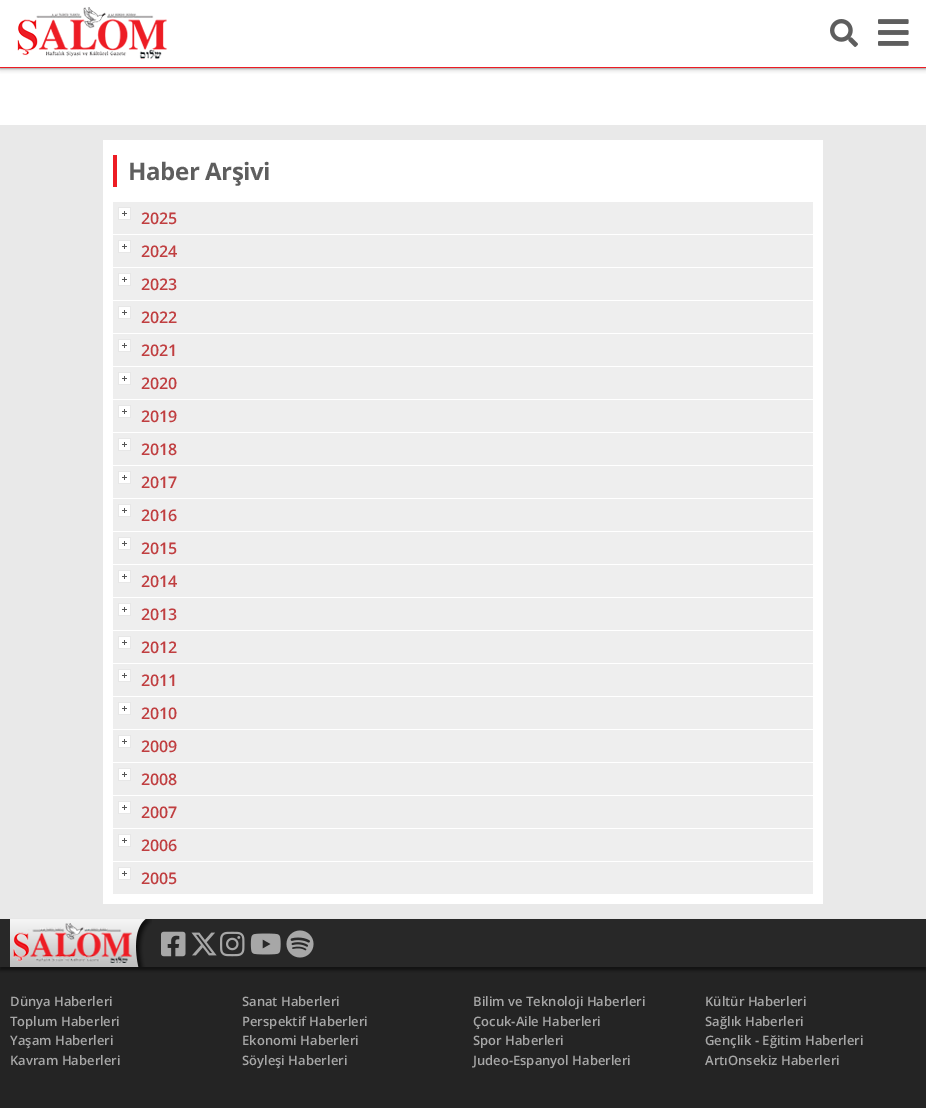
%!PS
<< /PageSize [926 1108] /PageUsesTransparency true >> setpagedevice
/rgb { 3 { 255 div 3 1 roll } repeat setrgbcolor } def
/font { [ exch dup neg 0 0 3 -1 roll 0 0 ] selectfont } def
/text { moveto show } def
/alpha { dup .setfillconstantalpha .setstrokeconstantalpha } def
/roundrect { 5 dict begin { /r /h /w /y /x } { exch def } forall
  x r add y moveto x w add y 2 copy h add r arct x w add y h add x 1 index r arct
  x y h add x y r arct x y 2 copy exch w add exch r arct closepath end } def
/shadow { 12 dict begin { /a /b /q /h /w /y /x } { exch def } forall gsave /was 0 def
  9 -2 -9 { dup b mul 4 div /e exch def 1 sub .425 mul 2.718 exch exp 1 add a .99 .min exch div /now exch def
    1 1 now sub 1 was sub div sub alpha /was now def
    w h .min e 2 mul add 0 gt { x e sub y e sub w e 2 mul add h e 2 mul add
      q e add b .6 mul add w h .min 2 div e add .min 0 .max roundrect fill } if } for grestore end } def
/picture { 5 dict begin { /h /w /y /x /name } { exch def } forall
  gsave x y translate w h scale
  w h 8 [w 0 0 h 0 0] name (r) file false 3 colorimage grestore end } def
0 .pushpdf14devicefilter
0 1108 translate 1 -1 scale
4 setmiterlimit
233 233 233 rgb
0 0 926 1108 rectfill
255 255 255 rgb
0 69 926 56 rectfill
0 0 0 rgb
0 0 926 68 0 2.5 0.5 shadow
255 255 255 rgb
0 0 926 67 rectfill
237 28 36 rgb
0 67 926 1 rectfill
(img_01.rgb) 17 7 150 52 picture
(img_02.rgb) 830 19 28 28 picture
(img_03.rgb) 878 19 31 27 picture
255 255 255 rgb
103 140 720 764 rectfill
237 28 36 rgb
113 155 4 32 rectfill
238 238 238 rgb
113 202 700 32 rectfill
(img_04.rgb) 118 207 13 13 picture
113 235 700 32 rectfill
(img_04.rgb) 118 240 13 13 picture
113 268 700 32 rectfill
(img_04.rgb) 118 273 13 13 picture
113 301 700 32 rectfill
(img_04.rgb) 118 306 13 13 picture
113 334 700 32 rectfill
(img_04.rgb) 118 339 13 13 picture
113 367 700 32 rectfill
(img_04.rgb) 118 372 13 13 picture
113 400 700 32 rectfill
(img_04.rgb) 118 405 13 13 picture
113 433 700 32 rectfill
(img_04.rgb) 118 438 13 13 picture
113 466 700 32 rectfill
(img_04.rgb) 118 471 13 13 picture
113 499 700 32 rectfill
(img_04.rgb) 118 504 13 13 picture
113 532 700 32 rectfill
(img_04.rgb) 118 537 13 13 picture
113 565 700 32 rectfill
(img_04.rgb) 118 570 13 13 picture
113 598 700 32 rectfill
(img_04.rgb) 118 603 13 13 picture
113 631 700 32 rectfill
(img_04.rgb) 118 636 13 13 picture
113 664 700 32 rectfill
(img_04.rgb) 118 669 13 13 picture
113 697 700 32 rectfill
(img_04.rgb) 118 702 13 13 picture
113 730 700 32 rectfill
(img_04.rgb) 118 735 13 13 picture
113 763 700 32 rectfill
(img_04.rgb) 118 768 13 13 picture
113 796 700 32 rectfill
(img_04.rgb) 118 801 13 13 picture
113 829 700 32 rectfill
(img_04.rgb) 118 834 13 13 picture
113 862 700 32 rectfill
(img_04.rgb) 118 867 13 13 picture
36 36 36 rgb
0 967 926 141 rectfill
0 0 0 rgb
0 922 926 48 0 1.5 0.5 shadow
40 40 40 rgb
0 919 926 48 rectfill
(img_05.rgb) 10 919 142 48 picture
(img_06.rgb) 161 931 25 26 picture
(img_07.rgb) 191 932 26 24 picture
(img_08.rgb) 220 931 25 26 picture
(img_09.rgb) 250 933 31 22 picture
(img_10.rgb) 286 930 28 28 picture
/OpenSans-Bold 24 font
94 94 94 rgb
128 180 moveto -0.4 0 (Haber Arşivi) ashow
/OpenSans-SemiBold 16 font
192 62 64 rgb
(2025) 141 224 text
(2024) 141 257 text
(2023) 141 290 text
(2022) 141 323 text
(2021) 141 356 text
(2020) 141 389 text
(2019) 141 422 text
(2018) 141 455 text
(2017) 141 488 text
(2016) 141 521 text
(2015) 141 554 text
(2014) 141 587 text
(2013) 141 620 text
(2012) 141 653 text
(2011) 141 686 text
(2010) 141 719 text
(2009) 141 752 text
(2008) 141 785 text
(2007) 141 818 text
(2006) 141 851 text
(2005) 141 884 text
/OpenSans-SemiBold 13 font
167 167 167 rgb
(Dünya Haberleri) 10 1006 text
(Toplum Haberleri) 10 1026 text
(Yaşam Haberleri) 10 1045 text
(Kavram Haberleri) 10 1065 text
(Sanat Haberleri) 242 1006 text
(Perspektif Haberleri) 242 1026 text
(Ekonomi Haberleri) 242 1045 text
(Söyleşi Haberleri) 242 1065 text
(Bilim ve Teknoloji Haberleri) 473 1006 text
(Çocuk-Aile Haberleri) 473 1026 text
(Spor Haberleri) 473 1045 text
(Judeo-Espanyol Haberleri) 473 1065 text
(Kültür Haberleri) 705 1006 text
(Sağlık Haberleri) 705 1026 text
(Gençlik - Eğitim Haberleri) 705 1045 text
(ArtıOnsekiz Haberleri) 705 1065 text
.poppdf14devicefilter showpage
